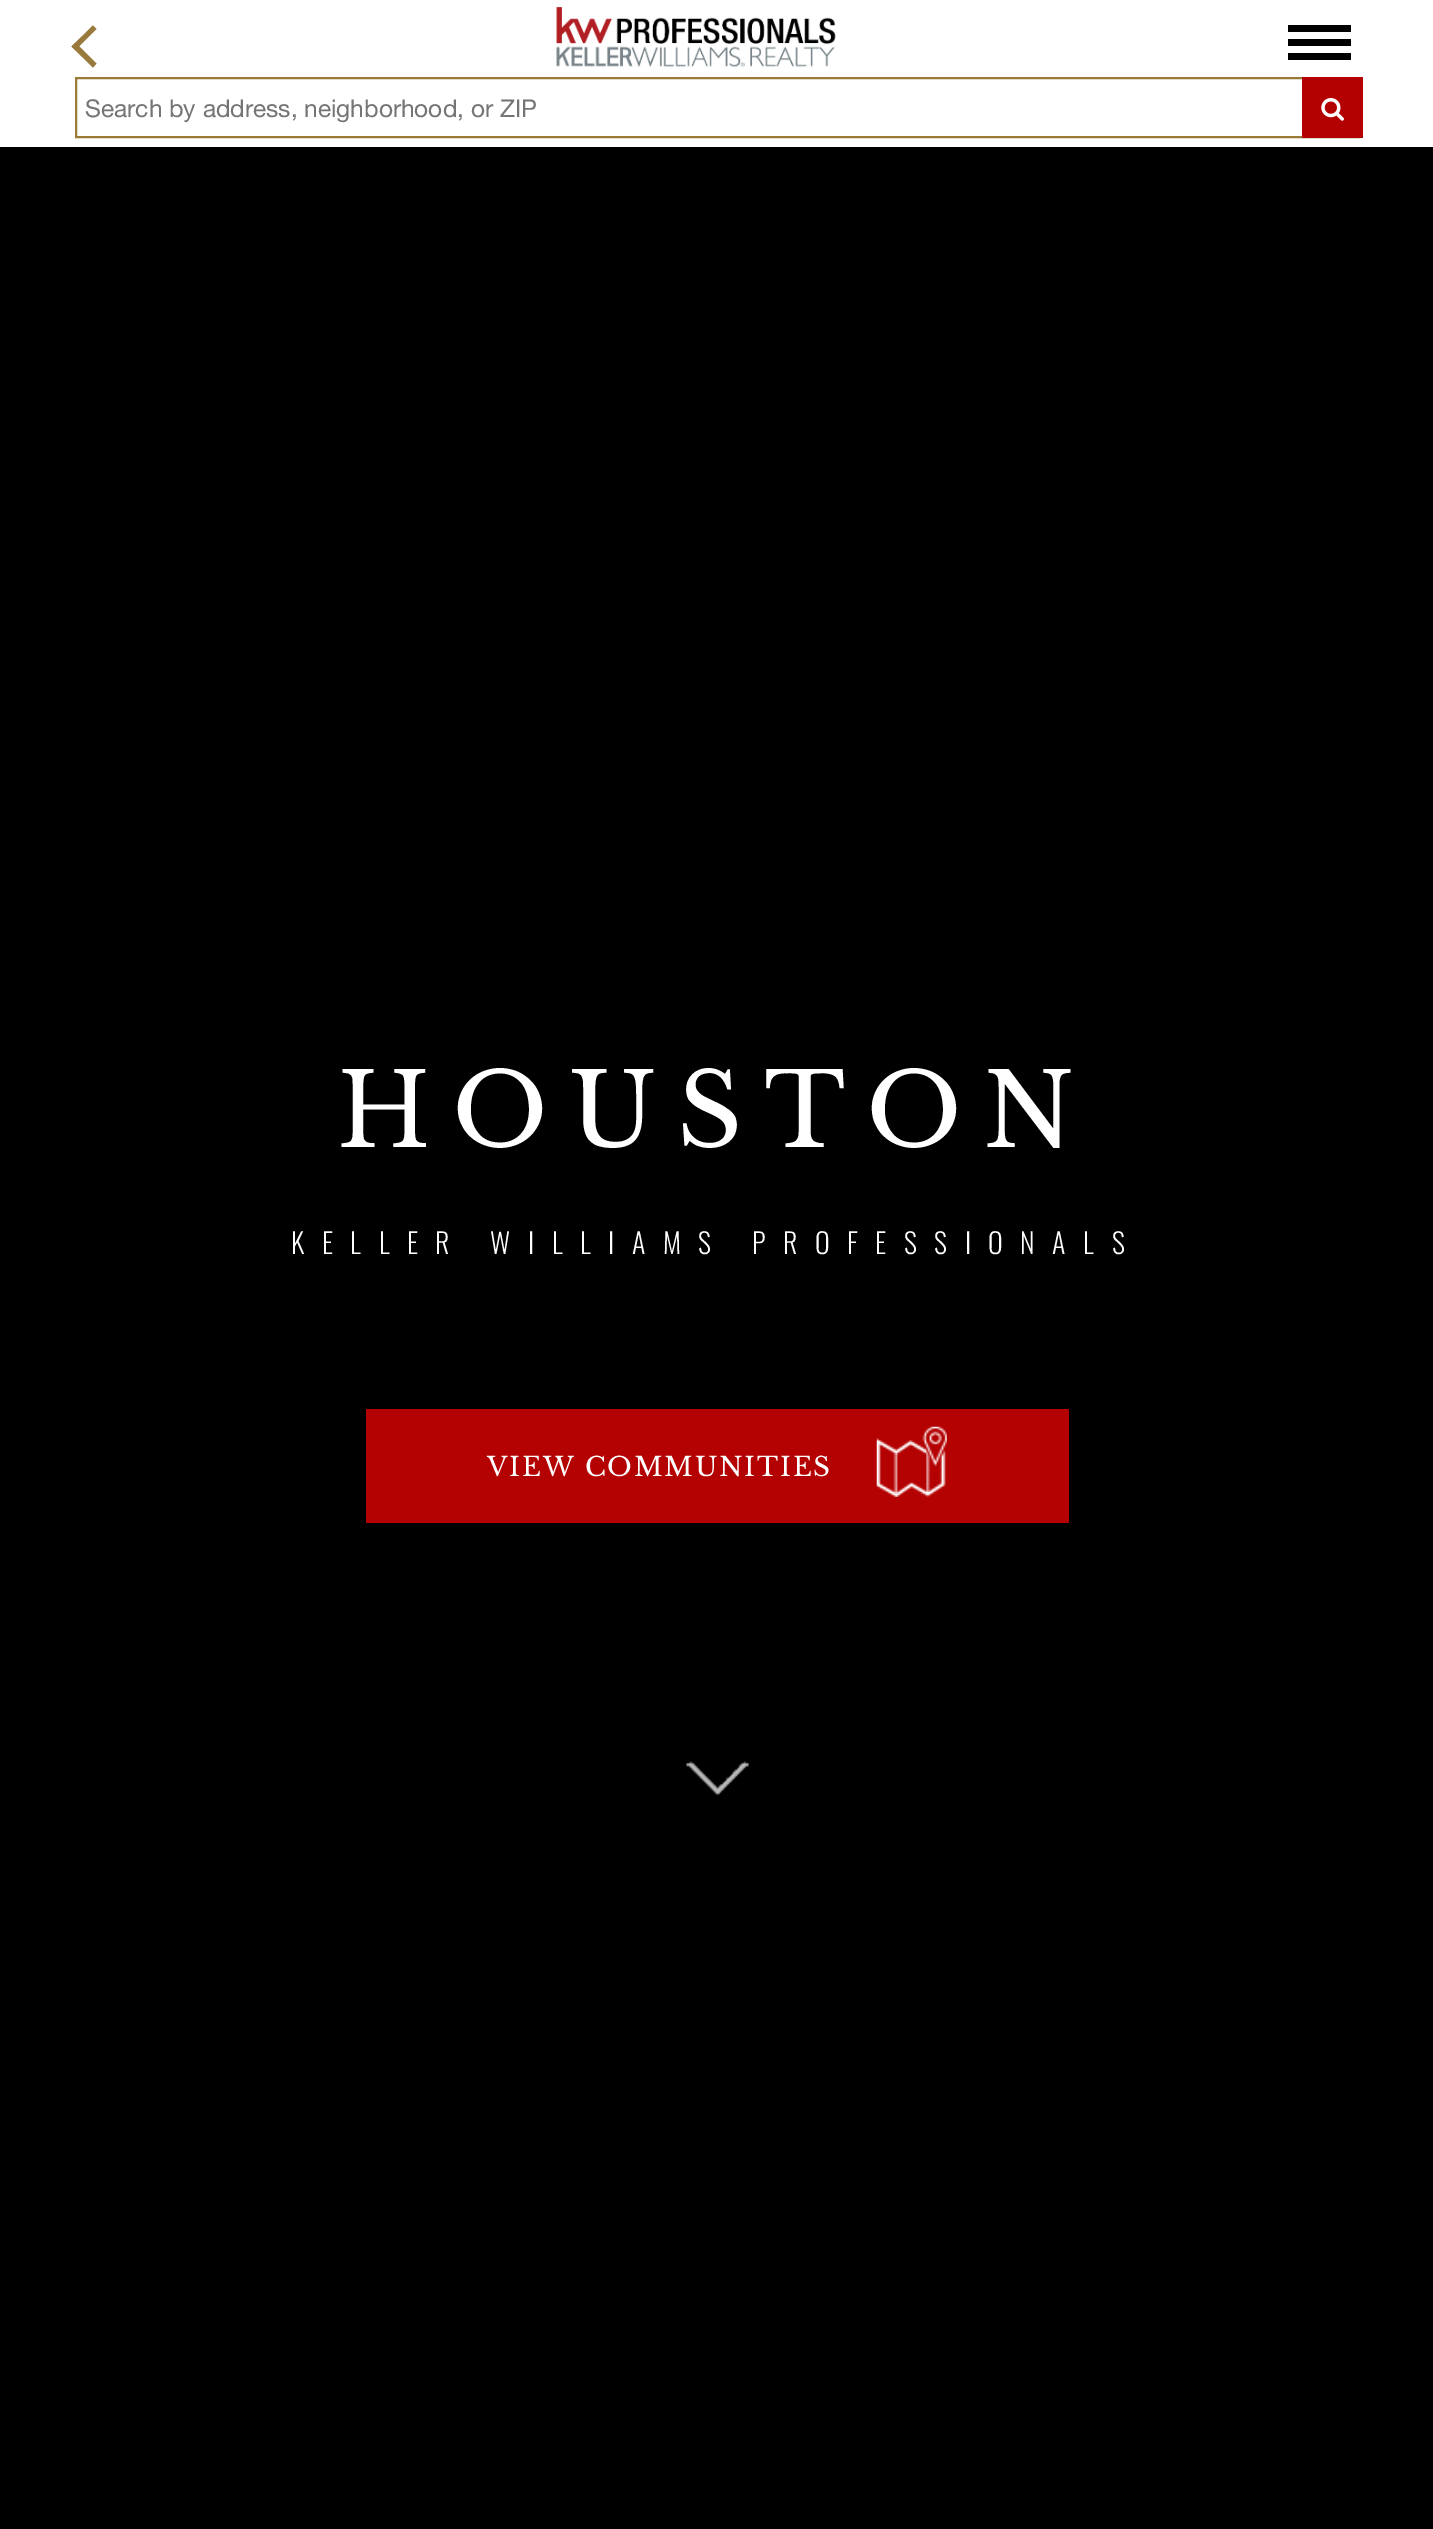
%!PS
<< /PageSize [1433 2529] >> setpagedevice
/rgb { 3 { 255 div 3 1 roll } repeat setrgbcolor } def
/font { [ exch dup neg 0 0 3 -1 roll 0 0 ] selectfont } def
/text { moveto show } def
/picture { 5 dict begin { /h /w /y /x /name } { exch def } forall
  gsave x y translate w h scale
  w h 8 [w 0 0 h 0 0] name (r) file false 3 colorimage grestore end } def
0 2529 translate 1 -1 scale
4 setmiterlimit
255 255 255 rgb
0 0 1433 2529 rectfill
153 122 60 rgb
96.5 63.5 moveto -3.5 4 rlineto -21.5 -21 rlineto 4 -4 rlineto closepath fill
96.5 29 moveto -21 21 rlineto -4 -3.5 rlineto 21.5 -21 rlineto closepath fill
(img_01.rgb) 556 7 280 60 picture
0 0 0 rgb
1288 39 63 7 rectfill
1288 25 63 7 rectfill
1288 53 63 7 rectfill
153 123 55 rgb
2 setlinewidth
76 78 1283 59 rectstroke
179 1 1 rgb
1302 77 61 61 rectfill
(img_02.rgb) 1321 98 23 23 picture
0 0 0 rgb
0 147 1433 2382 rectfill
180 1 1 rgb
366 1409 703 114 rectfill
(img_03.rgb) 876 1426 71 71 picture
(img_04.rgb) 686 1761 63 35 picture
/HelveticaNeue-Regular 24.5 font
117 117 117 rgb
(Search by address, neighborhood, or ZIP) 85 117 text
/LibreBaskerville-Regular 101.5 font
255 255 255 rgb
337 1147 moveto 21 0 (HOUSTON) ashow
/Oswald-Light 28 font
291 1254 moveto 17.5 0 (KELLER WILLIAMS PROFESSIONALS) ashow
/LibreBaskerville-Regular 26.25 font
487 1476 moveto 1.75 0 (VIEW COMMUNITIES) ashow
showpage
